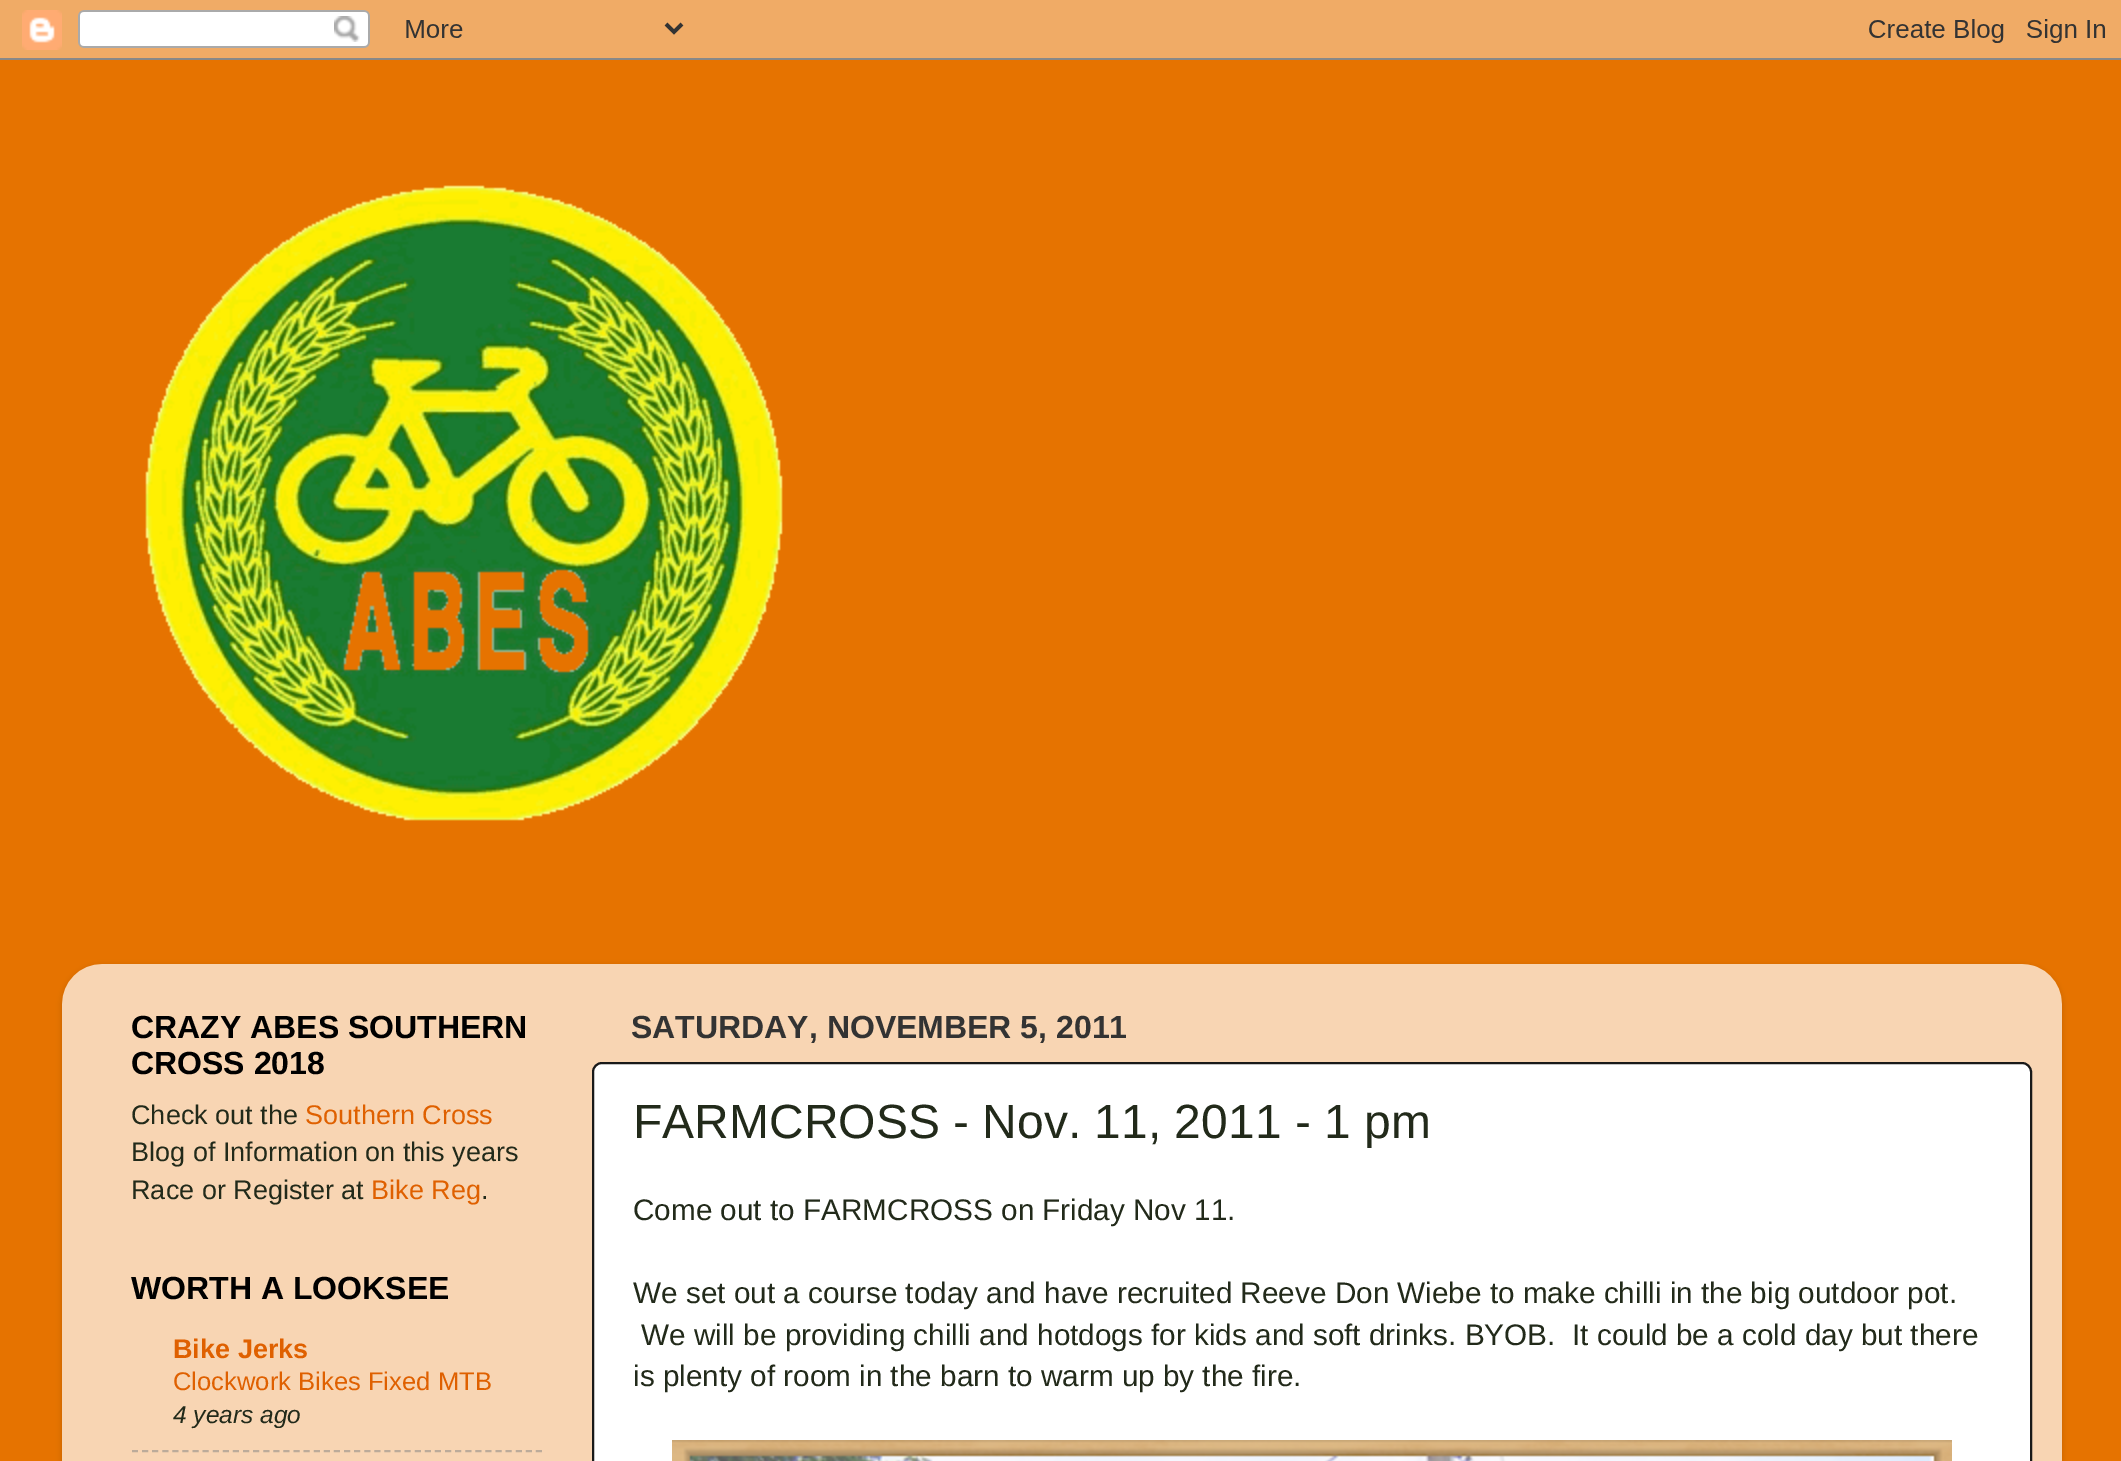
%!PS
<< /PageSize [2121 1461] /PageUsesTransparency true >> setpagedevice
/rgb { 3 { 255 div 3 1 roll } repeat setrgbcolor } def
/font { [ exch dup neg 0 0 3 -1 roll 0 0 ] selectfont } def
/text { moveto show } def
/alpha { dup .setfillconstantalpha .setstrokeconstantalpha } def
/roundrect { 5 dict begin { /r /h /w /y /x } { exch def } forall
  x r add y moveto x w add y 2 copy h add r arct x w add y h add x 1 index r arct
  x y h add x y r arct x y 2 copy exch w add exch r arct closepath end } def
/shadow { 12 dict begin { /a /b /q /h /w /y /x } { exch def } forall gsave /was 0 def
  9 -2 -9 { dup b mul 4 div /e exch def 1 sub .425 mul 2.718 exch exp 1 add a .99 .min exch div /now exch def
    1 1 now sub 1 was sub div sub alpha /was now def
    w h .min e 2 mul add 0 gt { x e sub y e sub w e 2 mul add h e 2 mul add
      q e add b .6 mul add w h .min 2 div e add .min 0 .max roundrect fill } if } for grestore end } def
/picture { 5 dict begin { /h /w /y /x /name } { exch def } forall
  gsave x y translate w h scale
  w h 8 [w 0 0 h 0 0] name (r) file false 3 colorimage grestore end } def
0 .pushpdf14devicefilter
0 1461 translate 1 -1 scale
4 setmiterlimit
230 115 0 rgb
0 0 2121 1461 rectfill
(img_01.rgb) 0 0 2121 60 picture
(img_02.rgb) 145 185 638 636 picture
gsave
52 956 moveto 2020 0 rlineto 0 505 rlineto -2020 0 rlineto closepath 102 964 moveto 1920 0 rlineto 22 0 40 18 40 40 rcurveto 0 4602 rlineto -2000 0 rlineto 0 -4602 rlineto 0 -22 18 -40 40 -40 rcurveto closepath eoclip newpath
0 0 0 rgb
62 966 2000 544 40 3 0.15 shadow
grestore
(img_03.rgb) 62 964 2000 497 picture
188 171 154 rgb
2 setlinewidth
[6 4.1] 0 setdash
132 1451 moveto 410 0 rlineto stroke
255 255 255 rgb
593 1063 1438 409 9 roundrect gsave fill grestore
25 25 25 rgb
[] 0 setdash
stroke
(img_04.rgb) 672 1440 1280 21 picture
/LiberationSans-Bold 32 font
0 0 0 rgb
(CRAZY ABES SOUTHERN) 131 1038 text
(CROSS 2018) 131 1074 text
/LiberationSans-Regular 27 font
34 42 26 rgb
(Check out the) 131 1124 text
223 96 0 rgb
(Southern Cross) 305 1124 text
34 42 26 rgb
(Blog of Information on this years) 131 1161 text
(Race or Register at) 131 1199 text
223 96 0 rgb
(Bike Reg) 371 1199 text
34 42 26 rgb
(.) 481 1199 text
/LiberationSans-Bold 32 font
0 0 0 rgb
(WORTH A LOOKSEE) 131 1299 text
/LiberationSans-Bold 27 font
223 96 0 rgb
(Bike Jerks) 173 1358 text
/LiberationSans-Regular 25.6 font
(Clockwork Bikes Fixed MTB) 173 1390 text
/LiberationSans-Italic 24.5 font
34 42 26 rgb
(4 years ago) 173 1423 text
/LiberationSans-Bold 32 font
51 51 51 rgb
(SATURDAY, NOVEMBER 5, 2011) 631 1038 text
/LiberationSans-Regular 48 font
34 42 26 rgb
(FARMCROSS - Nov. 11, 2011 - 1 pm) 633 1138 text
/LiberationSans-Regular 29.7 font
(Come out to FARMCROSS on Friday Nov 11.) 633 1220 text
(We set out a course today and have recruited Reeve Don Wiebe to make chilli in the big outdoor pot.) 633 1303 text
(We will be providing chilli and hotdogs for kids and soft drinks. BYOB.  It could be a cold day but there) 641 1345 text
(is plenty of room in the barn to warm up by the fire.) 633 1386 text
.poppdf14devicefilter showpage
